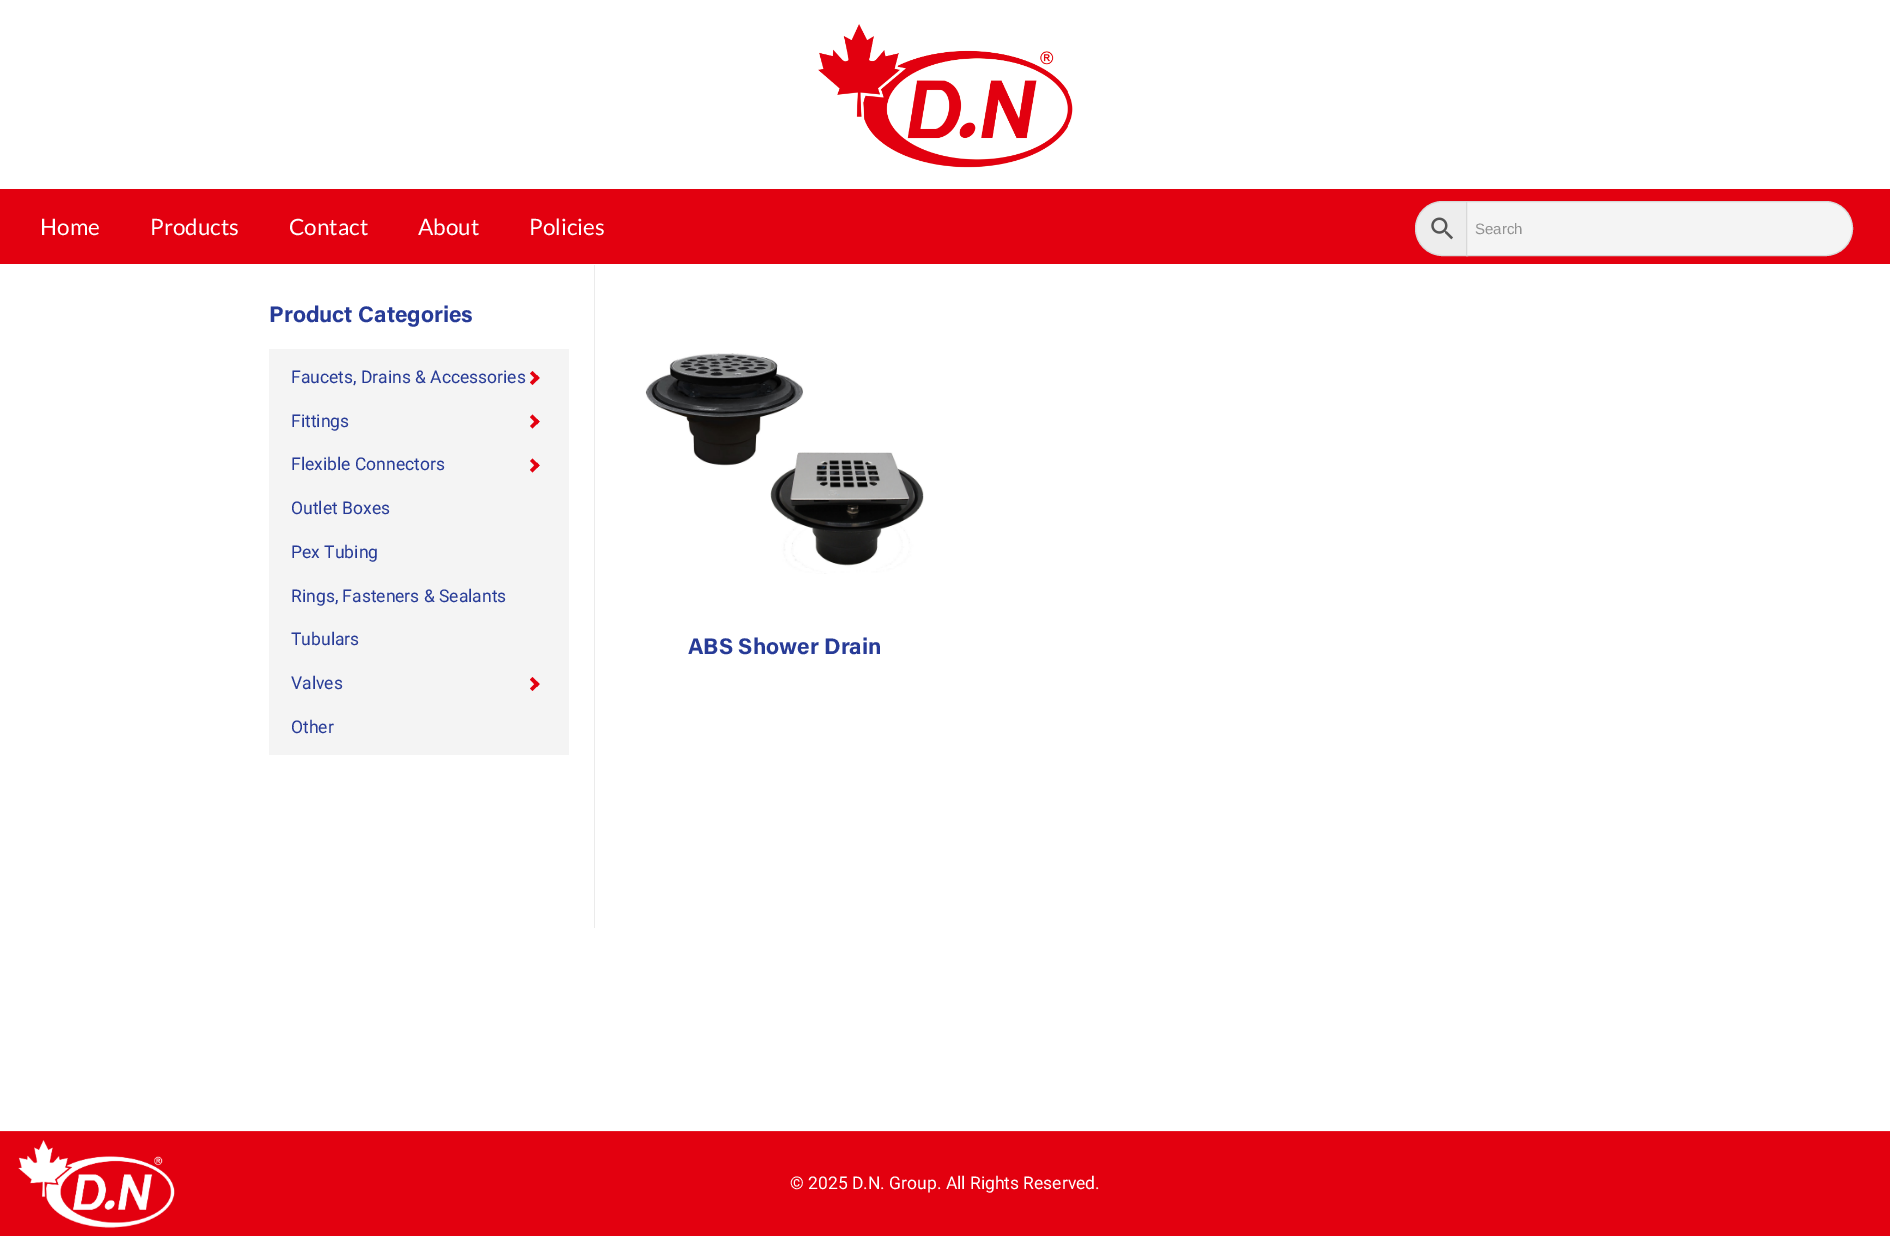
%!PS
<< /PageSize [1890 1236] >> setpagedevice
/rgb { 3 { 255 div 3 1 roll } repeat setrgbcolor } def
/font { [ exch dup neg 0 0 3 -1 roll 0 0 ] selectfont } def
/text { moveto show } def
/picture { 5 dict begin { /h /w /y /x /name } { exch def } forall
  gsave x y translate w h scale
  w h 8 [w 0 0 h 0 0] name (r) file false 3 colorimage grestore end } def
0 1236 translate 1 -1 scale
4 setmiterlimit
255 255 255 rgb
0 0 1890 1236 rectfill
(img_01.rgb) 818 24 255 144 picture
227 0 15 rgb
0 189 1890 75 rectfill
237 237 237 rgb
1442.5 201.5 moveto 25 0 rlineto 0 54 rlineto -25 0 rlineto -15 0 -27 -12 -27 -27 rcurveto 0 -15 12 -27 27 -27 rcurveto closepath gsave fill grestore
216 216 216 rgb
stroke
(img_02.rgb) 1431 217 22 23 picture
244 244 244 rgb
1466.5 201.5 moveto 359 0 rlineto 15 0 27 12 27 27 rcurveto 0 15 -12 27 -27 27 rcurveto -359 0 rlineto closepath gsave fill grestore
216 216 216 rgb
stroke
235 235 235 rgb
594 265 1 663 rectfill
244 244 244 rgb
269 349 300 406 rectfill
227 0 15 rgb
530 373.5 moveto 2.5 -2.5 rlineto 7 7 rlineto -2.5 2.5 rlineto closepath fill
530 382.5 moveto 7 -7.5 rlineto 2.5 3 rlineto -7 7 rlineto closepath fill
530 417 moveto 2.5 -2.5 rlineto 7 7 rlineto -2.5 3 rlineto closepath fill
530 426 moveto 7 -7 rlineto 2.5 2.5 rlineto -7 7 rlineto closepath fill
530 461 moveto 2.5 -2.5 rlineto 7 7 rlineto -2.5 2.5 rlineto closepath fill
530 470 moveto 7 -7.5 rlineto 2.5 3 rlineto -7 7 rlineto closepath fill
530 679.5 moveto 2.5 -2.5 rlineto 7 7 rlineto -2.5 3 rlineto closepath fill
530 688.5 moveto 7 -7 rlineto 2.5 2.5 rlineto -7 7 rlineto closepath fill
(img_03.rgb) 645 353 279 221 picture
0 1132 1890 104 rectfill
(img_04.rgb) 18 1140 157 88 picture
230 26 39 rgb
0 1131 1890 1 rectfill
/Lato-Regular 22.5 font
255 255 255 rgb
(Home) 40 235 text
(Products) 150 235 text
(Contact) 289 235 text
(About) 418 235 text
(Policies) 529 235 text
/LiberationSans-Regular 15 font
146 146 146 rgb
(Search) 1475 234 text
/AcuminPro-Bold 22.5 font
39 59 151 rgb
(Product Categories) 269 322 text
/Roboto-Regular 17.5 font
(Faucets, Drains & Accessories) 291 383 text
(Fittings) 291 427 text
(Flexible Connectors) 291 470 text
(Outlet Boxes) 291 514 text
(Pex Tubing) 291 558 text
(Rings, Fasteners & Sealants) 291 602 text
(Tubulars) 291 645 text
(Valves) 291 689 text
(Other) 291 733 text
/AcuminPro-Bold 22.5 font
(ABS Shower Drain) 688 654 text
/Roboto-Regular 17.5 font
255 255 255 rgb
(© 2025 D.N. Group. All Rights Reserved.) 790 1189 text
showpage
